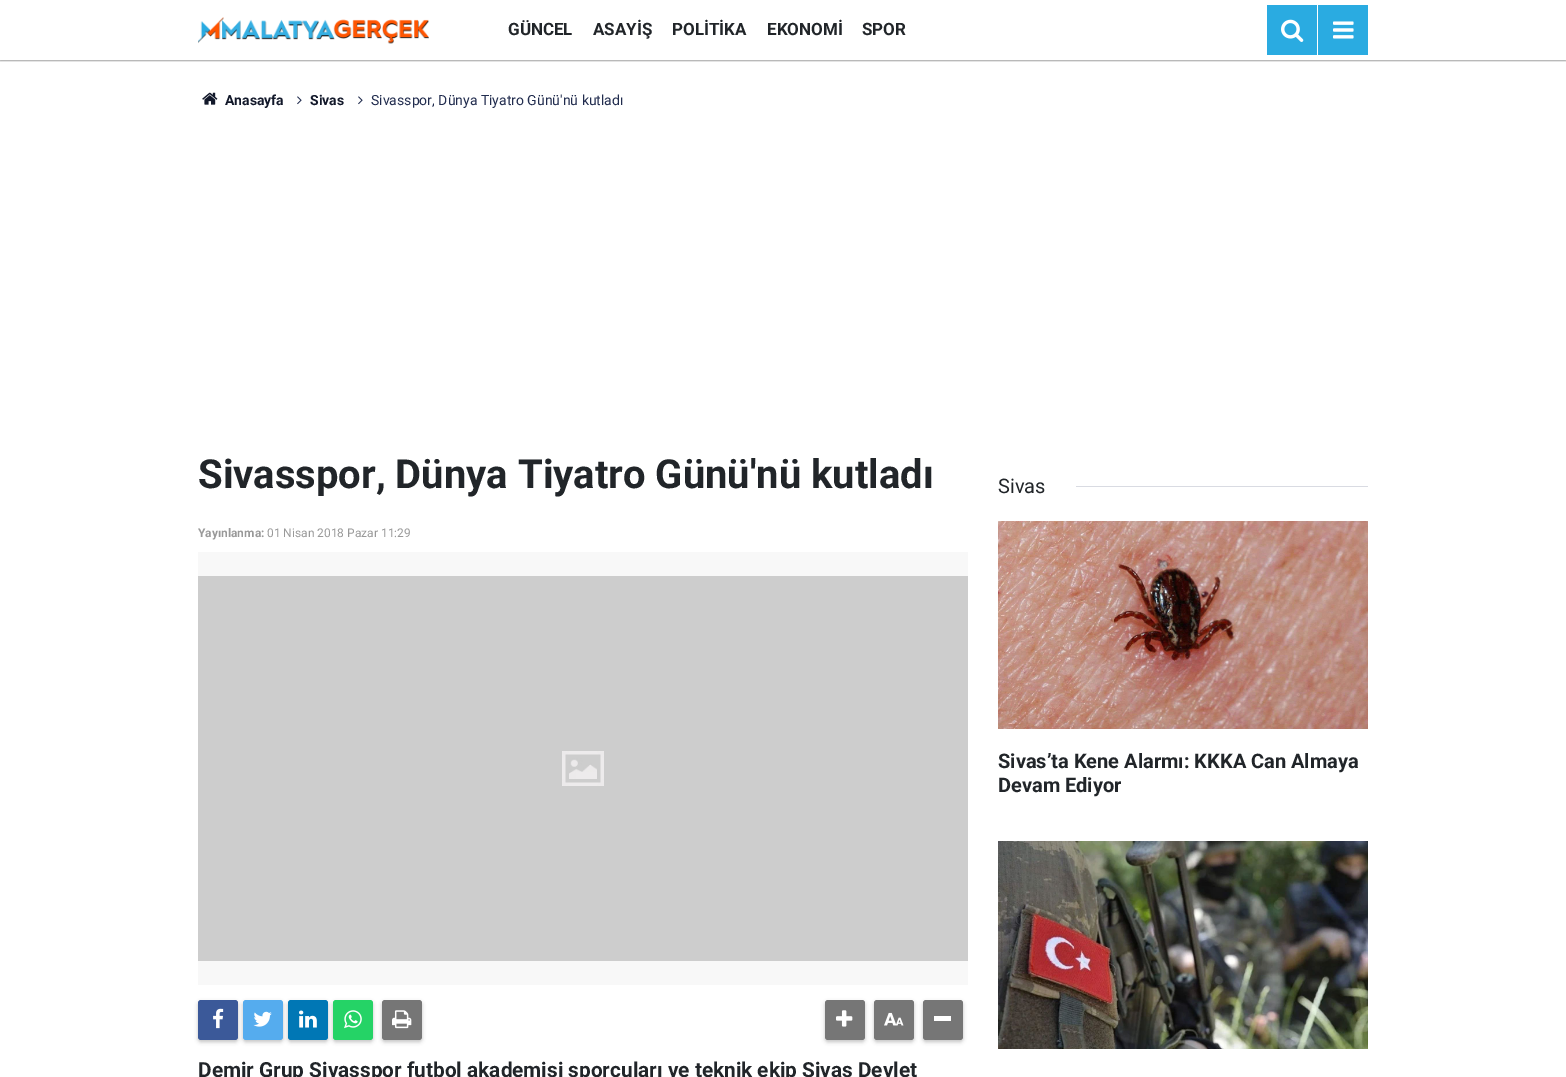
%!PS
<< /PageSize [1566 1077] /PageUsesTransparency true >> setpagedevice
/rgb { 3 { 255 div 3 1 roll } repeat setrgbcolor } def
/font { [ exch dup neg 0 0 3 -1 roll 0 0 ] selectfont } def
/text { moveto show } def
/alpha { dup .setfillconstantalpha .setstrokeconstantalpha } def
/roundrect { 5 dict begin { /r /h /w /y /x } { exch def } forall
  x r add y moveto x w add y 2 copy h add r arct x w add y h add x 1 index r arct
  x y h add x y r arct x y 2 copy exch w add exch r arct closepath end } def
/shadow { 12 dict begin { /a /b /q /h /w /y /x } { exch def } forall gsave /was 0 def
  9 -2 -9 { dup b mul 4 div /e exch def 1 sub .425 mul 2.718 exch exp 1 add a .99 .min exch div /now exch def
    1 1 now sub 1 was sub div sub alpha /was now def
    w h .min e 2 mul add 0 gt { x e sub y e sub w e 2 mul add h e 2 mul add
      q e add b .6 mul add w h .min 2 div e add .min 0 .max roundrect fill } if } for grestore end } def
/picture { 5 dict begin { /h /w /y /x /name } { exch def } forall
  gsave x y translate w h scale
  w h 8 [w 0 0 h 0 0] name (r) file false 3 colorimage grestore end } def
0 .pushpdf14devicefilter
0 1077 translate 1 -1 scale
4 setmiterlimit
255 255 255 rgb
0 0 1566 1077 rectfill
gsave
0 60 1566 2 rectclip
0 0 0 rgb
0 1 1566 60 0 0.5 0.24 shadow
0 1 1566 60 0 1 0.12 shadow
grestore
(img_01.rgb) 198 17 231 27 picture
42 171 225 rgb
1267 5 50 50 rectfill
(img_02.rgb) 1281 19 23 23 picture
1318 5 50 50 rectfill
(img_03.rgb) 1333 21 21 18 picture
(img_04.rgb) 202 92 16 13 picture
(img_05.rgb) 297 96 5 9 picture
(img_05.rgb) 358 96 5 9 picture
248 248 248 rgb
198 552 770 433 rectfill
(img_06.rgb) 198 576 770 385 picture
50 50 50 rgb
198 1002 40 40 3 2 0.3 shadow
59 89 153 rgb
198 1000 40 40 3 roundrect fill
(img_07.rgb) 213 1008 11 21 picture
50 50 50 rgb
243 1002 40 40 3 2 0.3 shadow
85 172 238 rgb
243 1000 40 40 3 roundrect fill
(img_08.rgb) 253 1011 19 16 picture
50 50 50 rgb
288 1002 40 40 3 2 0.3 shadow
0 119 181 rgb
288 1000 40 40 3 roundrect fill
(img_09.rgb) 299 1010 18 18 picture
50 50 50 rgb
333 1002 40 40 3 2 0.3 shadow
37 211 102 rgb
333 1000 40 40 3 roundrect fill
(img_10.rgb) 344 1010 18 19 picture
50 50 50 rgb
382 1002 40 40 3 2 0.3 shadow
118 118 118 rgb
382 1000 40 40 3 roundrect fill
(img_11.rgb) 392 1010 20 19 picture
50 50 50 rgb
825 1002 40 40 3 2 0.3 shadow
118 118 118 rgb
825 1000 40 40 3 roundrect fill
(img_12.rgb) 836 1010 17 17 picture
50 50 50 rgb
874 1002 40 40 3 2 0.3 shadow
118 118 118 rgb
874 1000 40 40 3 roundrect fill
(img_13.rgb) 884 1012 20 14 picture
50 50 50 rgb
923 1002 40 40 3 2 0.3 shadow
118 118 118 rgb
923 1000 40 40 3 roundrect fill
255 255 255 rgb
934 1016 17 5 rectfill
217 219 226 rgb
1076 486 292 1 rectfill
(img_14.rgb) 998 521 370 208 picture
(img_15.rgb) 998 841 370 208 picture
/Roboto-Bold 17 font
33 37 41 rgb
(GÜNCEL) 508 35 text
(ASAYİŞ) 593 35 text
(POLİTİKA) 672 35 text
(EKONOMİ) 767 35 text
(SPOR) 862 35 text
/Roboto-Bold 14 font
18 24 42 rgb
(Anasayfa) 225 105 text
(Sivas) 310 105 text
/Roboto-Regular 14 font
33 44 78 rgb
(Sivasspor, Dünya Tiyatro Günü'nü kutladı) 371 105 text
/Roboto-Bold 40 font
33 37 41 rgb
(Sivasspor, Dünya Tiyatro Günü'nü kutladı) 198 488 text
/Roboto-Bold 12 font
153 153 153 rgb
(Yayınlanma:) 198 537 text
/Roboto-Regular 12 font
(01 Nisan 2018 Pazar 11:29) 267 537 text
/Roboto-Bold 20.8 font
33 37 41 rgb
(Demir Grup Sivasspor futbol akademisi sporcuları ve teknik ekip Sivas Devlet) 198 1077 text
/Roboto-Regular 20 font
(Sivas) 998 493 text
/Roboto-Bold 20 font
(Sivas’ta Kene Alarmı: KKKA Can Almaya) 998 768 text
(Devam Ediyor) 998 792 text
.poppdf14devicefilter showpage
